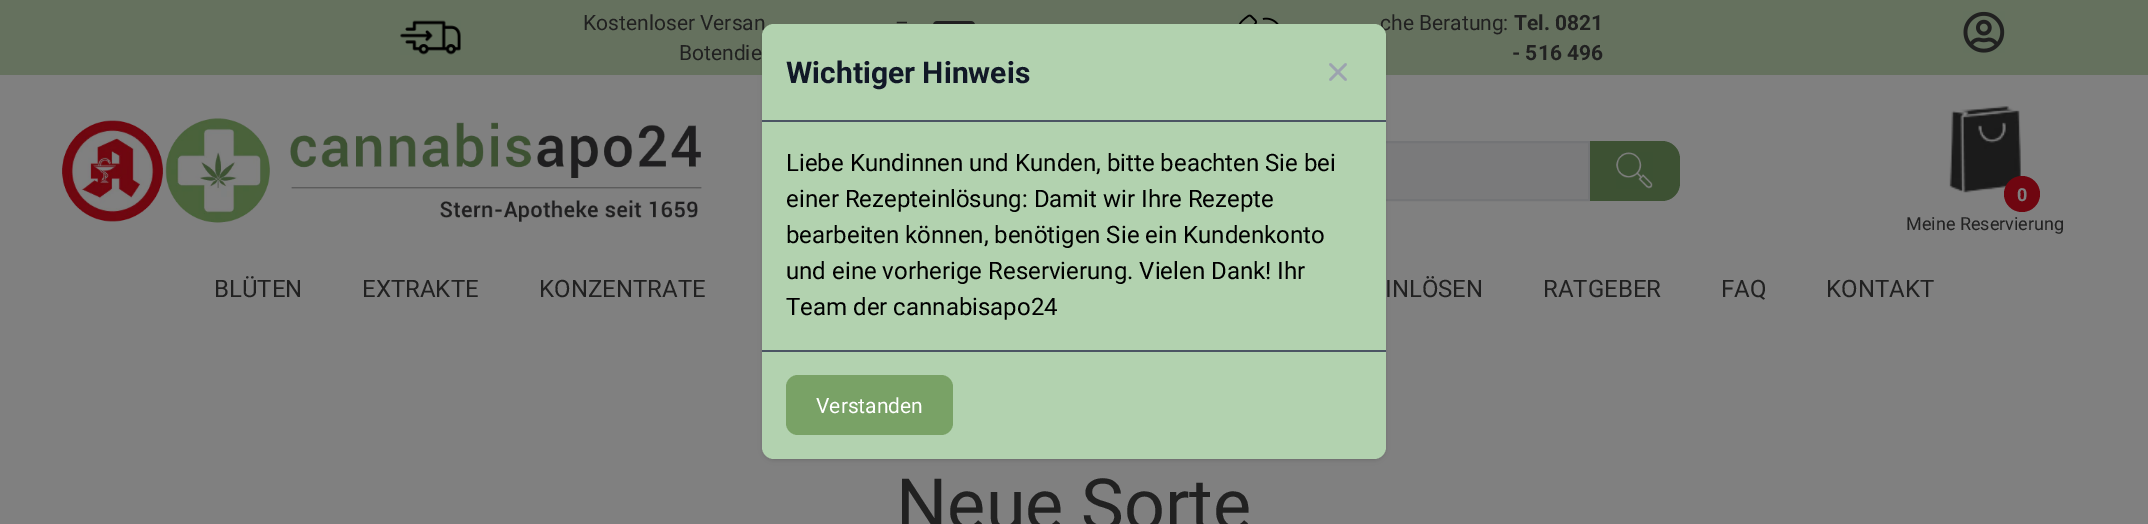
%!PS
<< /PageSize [2148 524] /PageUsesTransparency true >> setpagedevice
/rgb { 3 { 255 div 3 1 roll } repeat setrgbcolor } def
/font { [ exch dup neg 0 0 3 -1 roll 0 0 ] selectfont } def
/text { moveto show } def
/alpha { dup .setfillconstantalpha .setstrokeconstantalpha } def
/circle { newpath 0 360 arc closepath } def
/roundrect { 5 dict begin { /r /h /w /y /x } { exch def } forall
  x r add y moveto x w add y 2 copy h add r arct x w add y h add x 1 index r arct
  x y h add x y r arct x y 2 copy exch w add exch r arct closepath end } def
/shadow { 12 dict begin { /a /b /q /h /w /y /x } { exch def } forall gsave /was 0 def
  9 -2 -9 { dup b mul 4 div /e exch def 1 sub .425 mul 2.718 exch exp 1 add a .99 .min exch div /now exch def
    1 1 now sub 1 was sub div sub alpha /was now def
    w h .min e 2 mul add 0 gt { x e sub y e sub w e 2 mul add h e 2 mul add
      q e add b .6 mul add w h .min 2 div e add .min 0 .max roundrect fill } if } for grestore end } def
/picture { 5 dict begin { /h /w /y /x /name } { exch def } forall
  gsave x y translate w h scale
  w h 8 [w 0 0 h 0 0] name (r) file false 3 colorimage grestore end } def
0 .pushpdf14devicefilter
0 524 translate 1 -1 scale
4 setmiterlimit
128 128 128 rgb
0 0 2148 524 rectfill
101 113 94 rgb
0 0 2148 75 rectfill
(img_01.rgb) 400 20 61 35 picture
(img_02.rgb) 933 21 42 3 picture
(img_03.rgb) 1238 14 41 10 picture
(img_04.rgb) 1963 11 42 42 picture
(img_05.rgb) 62 120 101 102 picture
(img_06.rgb) 165 118 537 105 picture
122 122 123 rgb
1386 143 202 56 rectfill
115 116 118 rgb
2 setlinewidth
931 142 658 58 rectstroke
61 81 51 rgb
1590 141 moveto 72 0 rlineto 10 0 18 8 18 18 rcurveto 0 24 rlineto 0 10 -8 18 -18 18 rcurveto -72 0 rlineto closepath fill
(img_07.rgb) 1616 152 37 37 picture
(img_08.rgb) 1949 106 72 87 picture
111 6 16 rgb
2022 194 18 circle fill
0 0 0 rgb
764 27 621 432 11 1.5 0.1 shadow
762 26 624 435 12 2 0.1 shadow
/Roboto-Regular 21 font
33 33 33 rgb
(Kostenloser Versan) 583 30 text
(–) 895 30 text
(Botendie) 679 60 text
(che Beratung:) 1380 30 text
/Roboto-Bold 21 font
(Tel. 0821) 1514 30 text
(- 516 496) 1512 60 text
/Roboto-Bold 18 font
128 128 128 rgb
(0) 2017 201 text
/Roboto-Regular 18 font
33 33 33 rgb
(Meine Reservierung) 1906 230 text
/Roboto-Regular 24 font
(BLÜTEN) 214 297 text
(EXTRAKTE) 362 297 text
(KONZENTRATE) 539 297 text
(INLÖSEN) 1385 297 text
(RATGEBER) 1543 297 text
(FAQ) 1721 297 text
(KONTAKT) 1826 297 text
178 210 175 rgb
762 24 624 435 12 roundrect fill
75 85 99 rgb
762 120 624 2 rectfill
/Roboto-Bold 30 font
17 24 39 rgb
(Wichtiger Hinweis) 786 83 text
156 163 175 rgb
2.6 setlinewidth
1 setlinecap
1 setlinejoin
1330.5 64.5 moveto 7.5 7.5 rlineto 1338 72 moveto 7.5 7.5 rlineto 1338 72 moveto 7.5 -7.5 rlineto 1338 72 moveto -7.5 7.5 rlineto stroke
/Roboto-Regular 24 font
0 0 0 rgb
(Liebe Kundinnen und Kunden, bitte beachten Sie bei) 786 171 text
(einer Rezepteinlösung: Damit wir Ihre Rezepte) 786 207 text
(bearbeiten können, benötigen Sie ein Kundenkonto) 786 243 text
(und eine vorherige Reservierung. Vielen Dank! Ihr) 786 279 text
(Team der cannabisapo24) 786 315 text
75 85 99 rgb
762 350 624 2 rectfill
121 162 102 rgb
786 375 167 60 12 roundrect fill
/Roboto-Regular 21 font
255 255 255 rgb
(Verstanden) 816 413 text
/Roboto-Regular 72 font
33 33 33 rgb
(Neue Sorte) 896 530 text
.poppdf14devicefilter showpage
